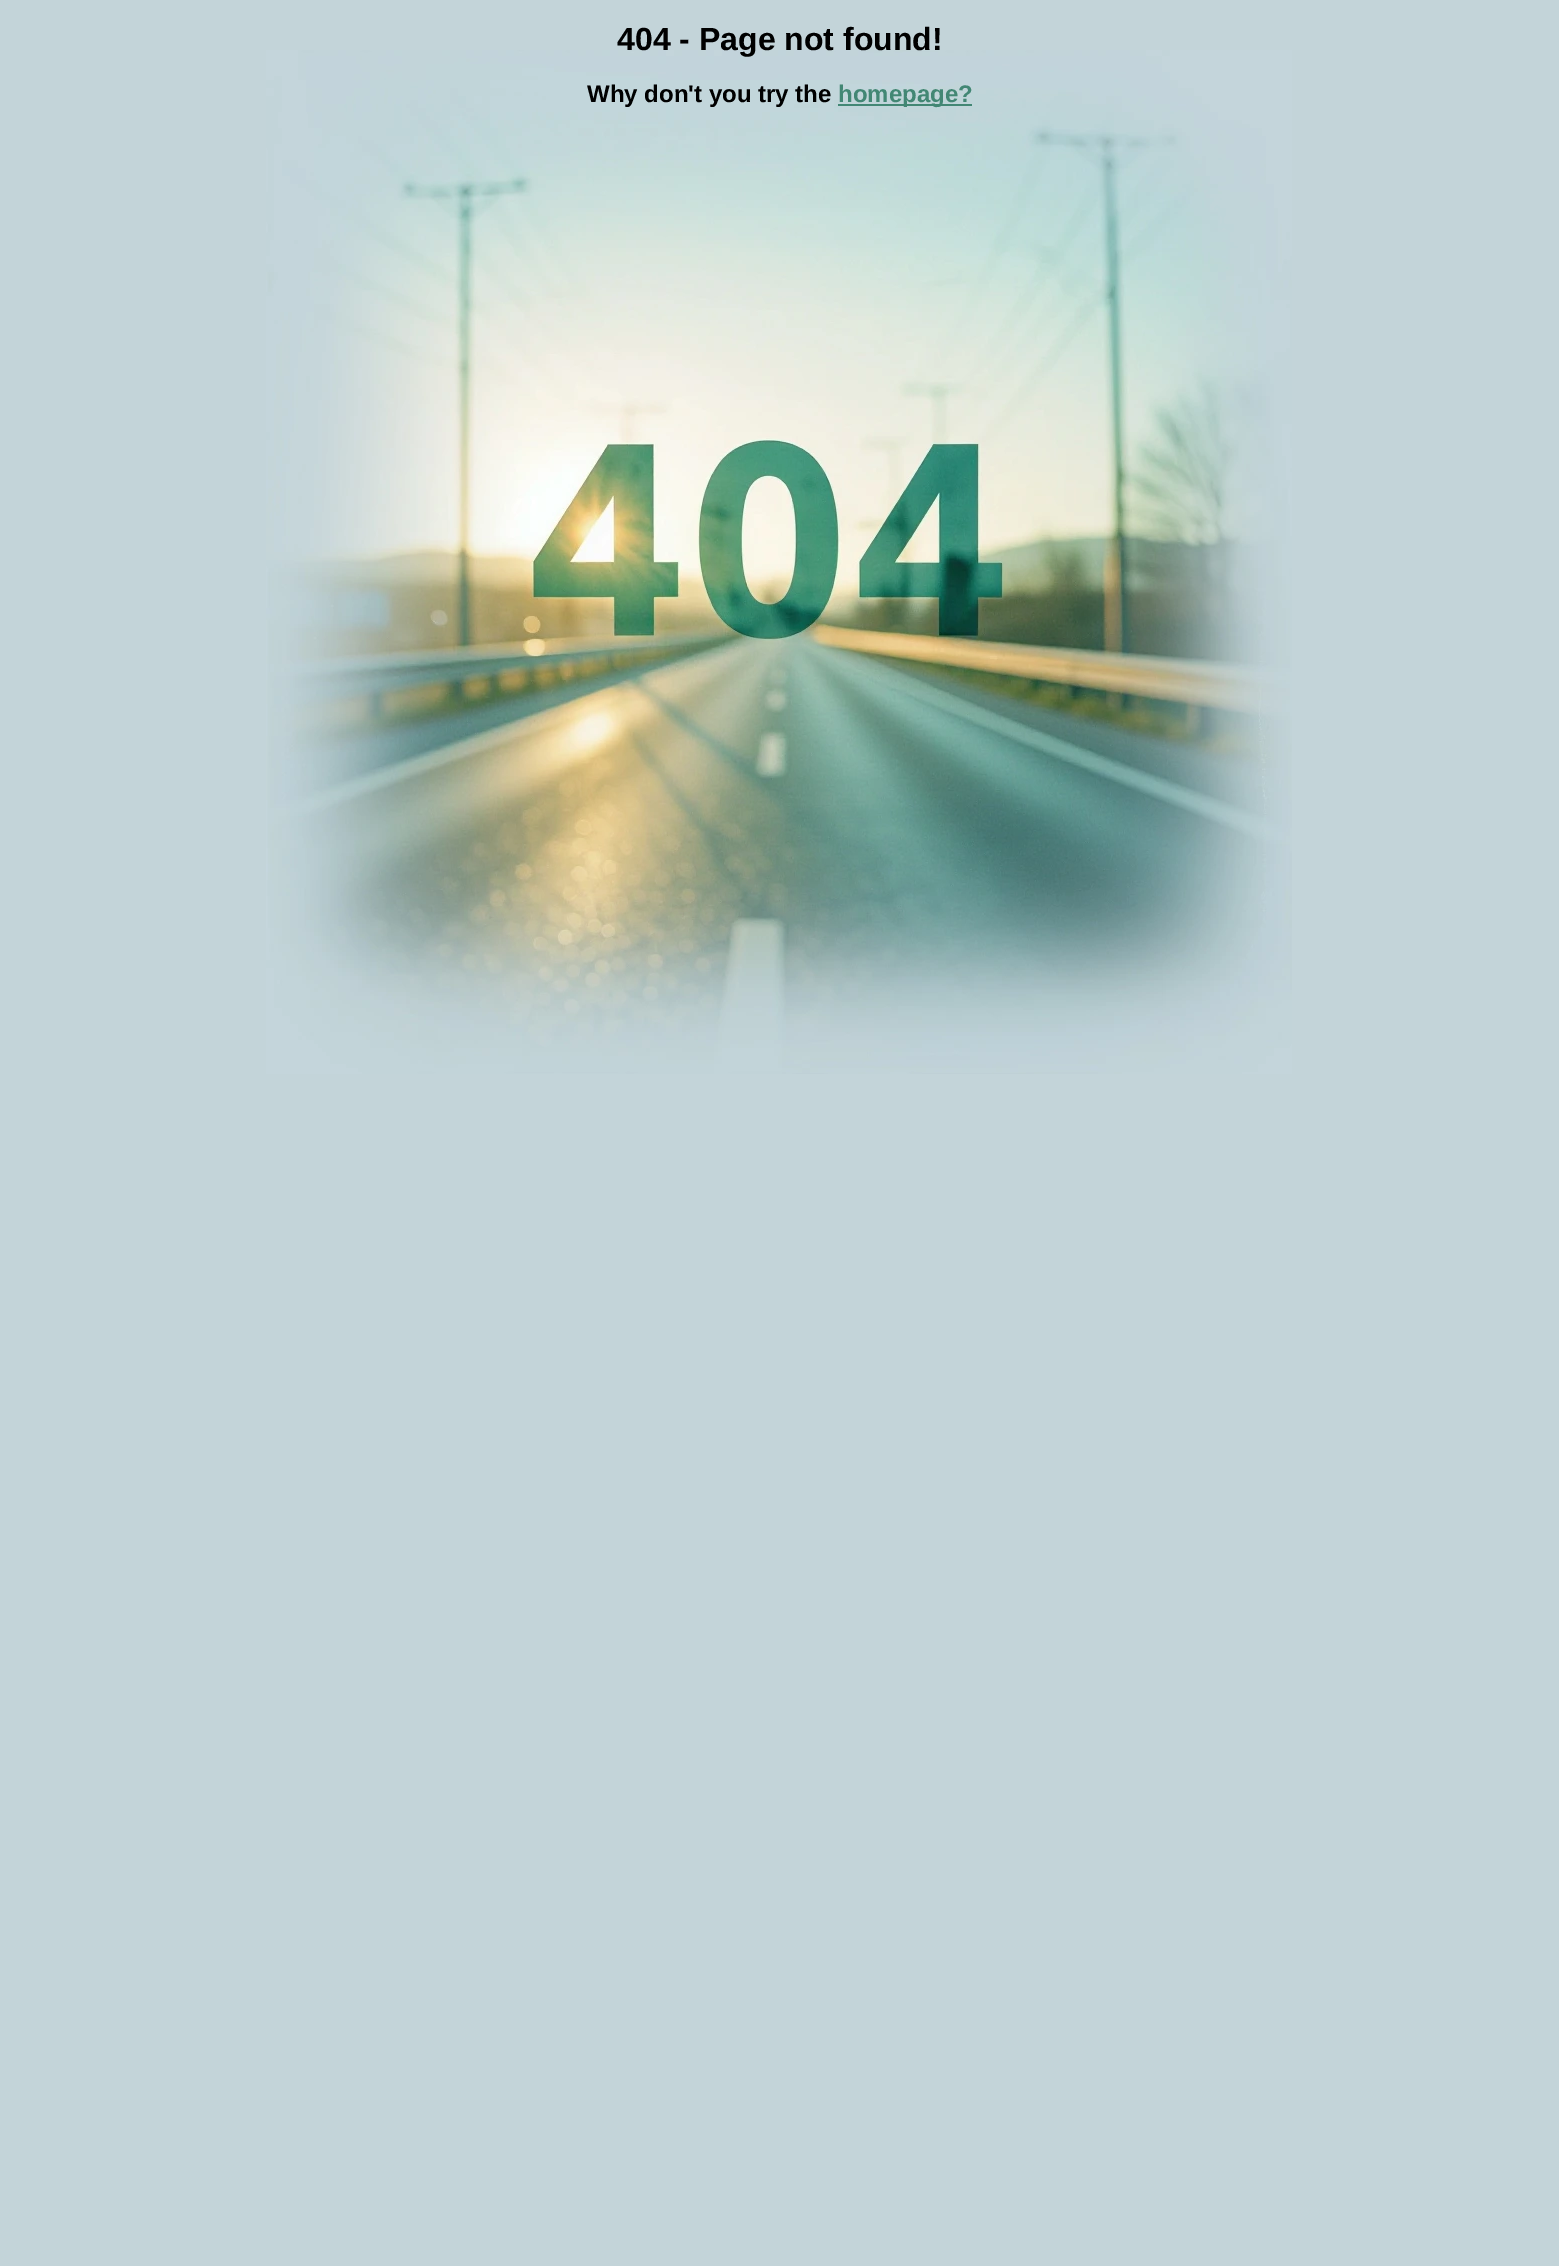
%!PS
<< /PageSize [1559 2266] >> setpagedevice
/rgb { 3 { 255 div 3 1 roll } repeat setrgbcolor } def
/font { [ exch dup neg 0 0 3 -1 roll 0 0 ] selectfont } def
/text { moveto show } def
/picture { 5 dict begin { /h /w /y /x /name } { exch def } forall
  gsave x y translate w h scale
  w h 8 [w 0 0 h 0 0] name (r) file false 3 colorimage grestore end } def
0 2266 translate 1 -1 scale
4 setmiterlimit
195 212 217 rgb
0 0 1559 2266 rectfill
(img_01.rgb) 266 50 1026 1024 picture
66 135 116 rgb
838 104 134 2 rectfill
/LiberationSans-Bold 32 font
0 0 0 rgb
(404 - Page not found!) 617 50 text
/LiberationSans-Bold 24 font
(Why don't you try the) 587 102 text
66 135 116 rgb
(homepage?) 838 102 text
showpage
